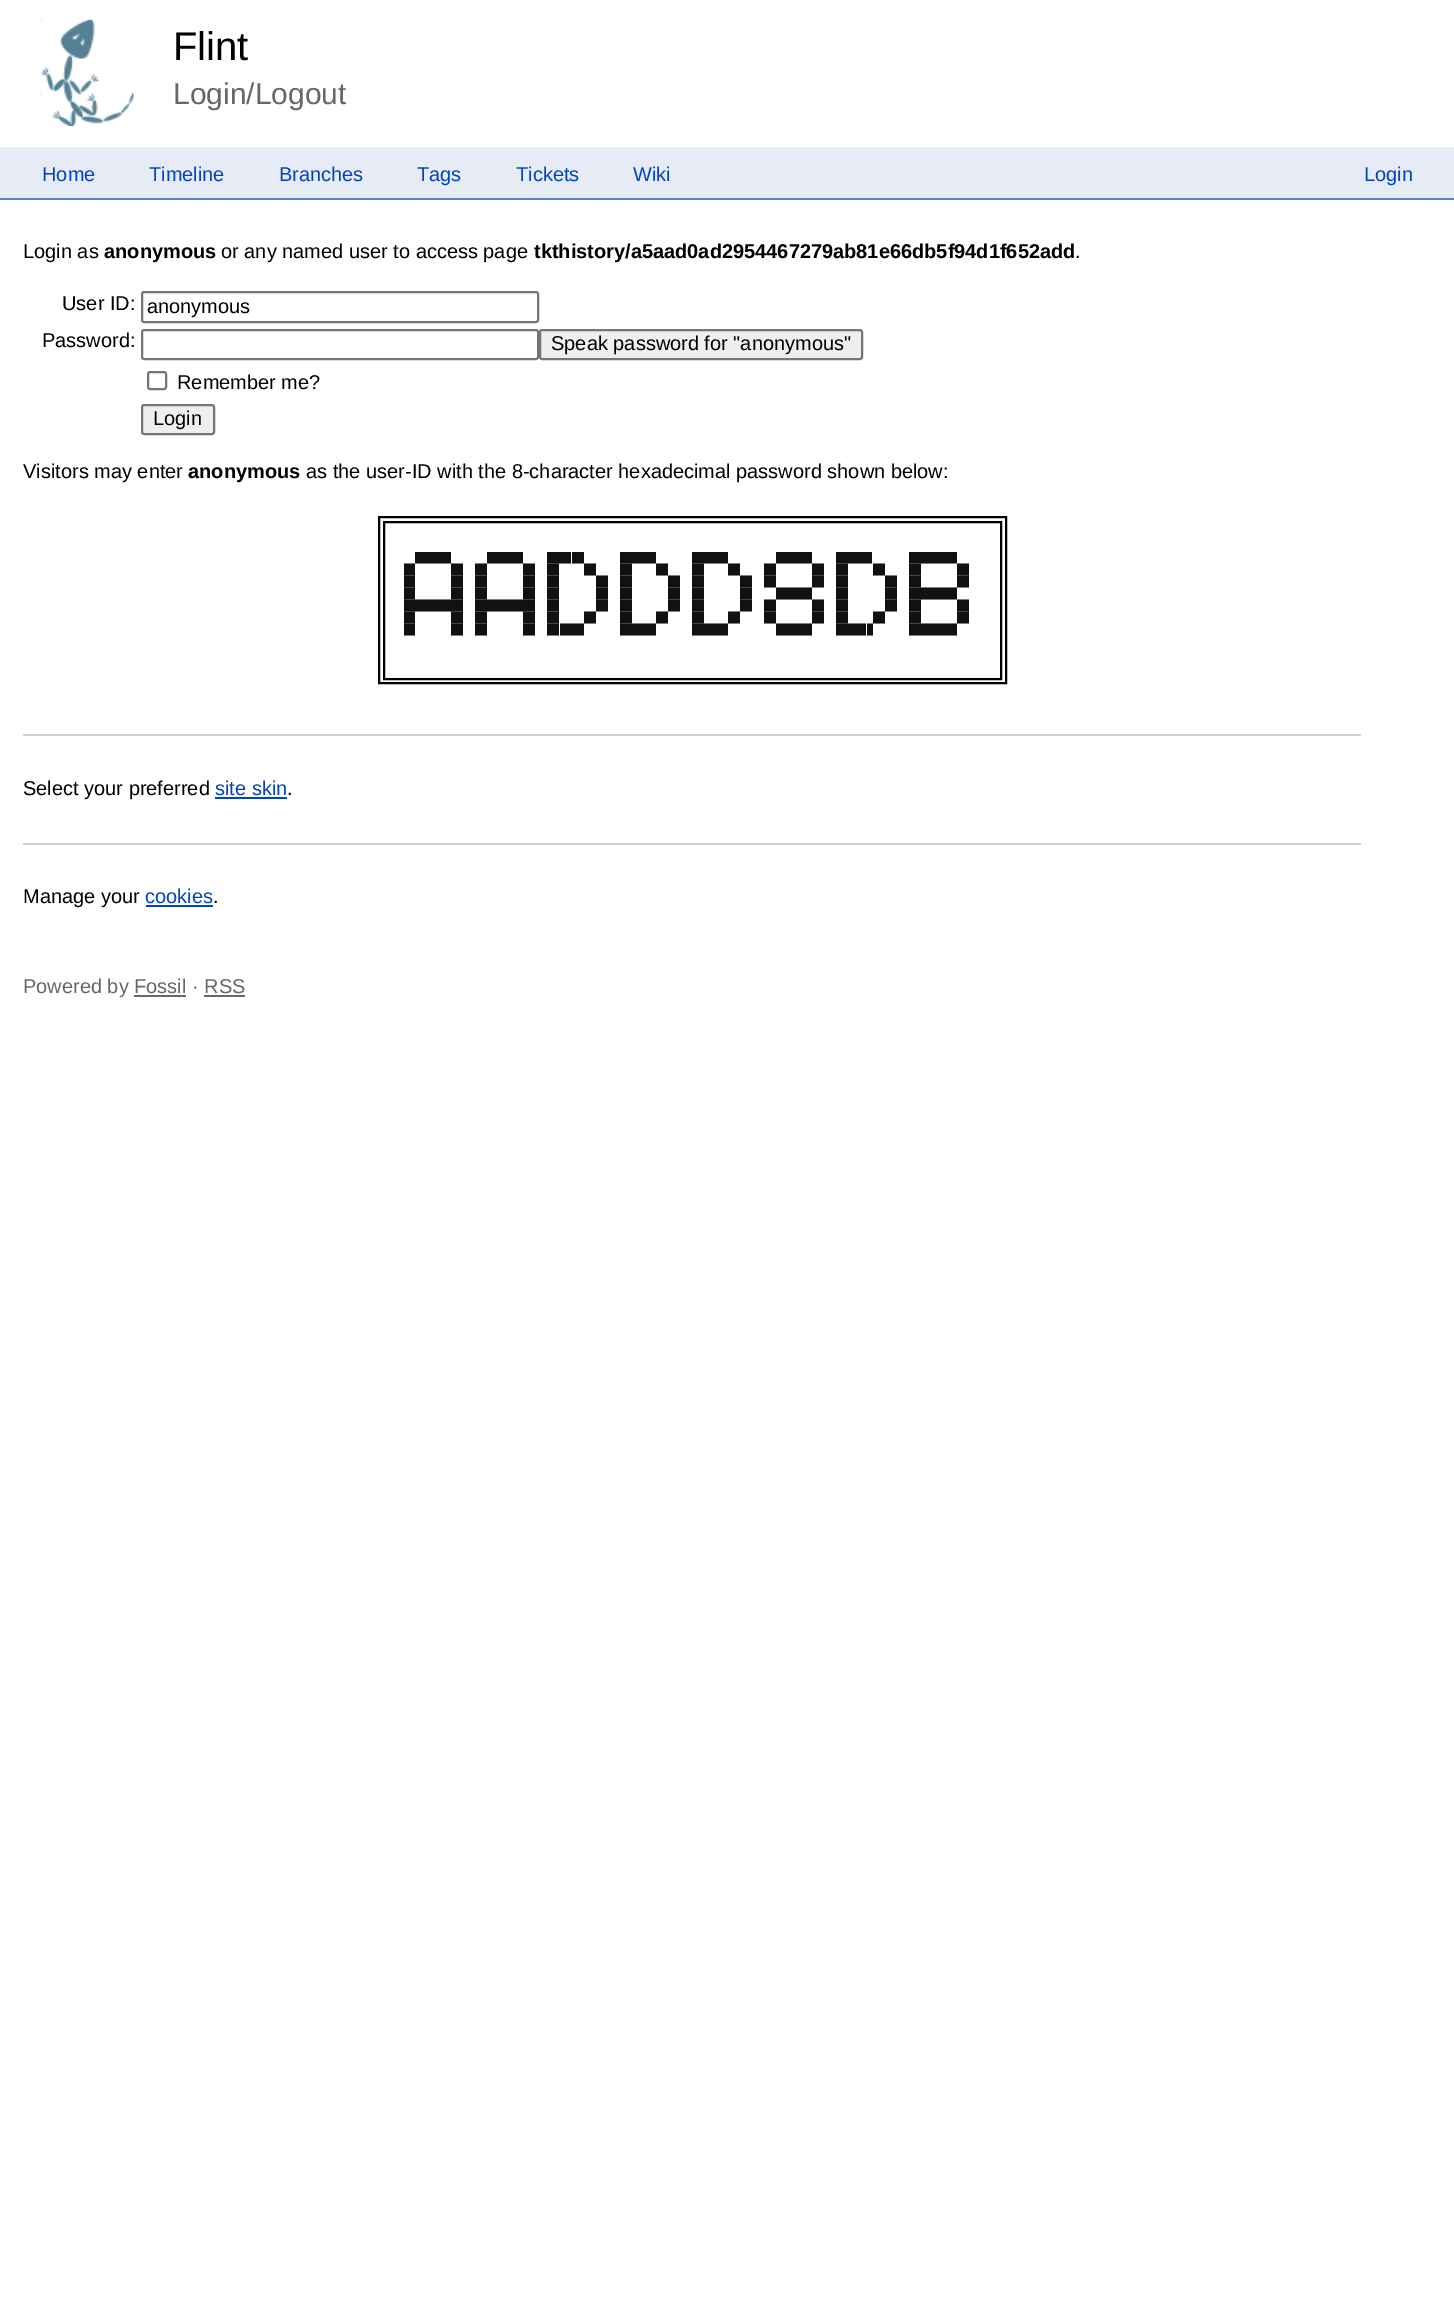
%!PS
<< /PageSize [1454 2313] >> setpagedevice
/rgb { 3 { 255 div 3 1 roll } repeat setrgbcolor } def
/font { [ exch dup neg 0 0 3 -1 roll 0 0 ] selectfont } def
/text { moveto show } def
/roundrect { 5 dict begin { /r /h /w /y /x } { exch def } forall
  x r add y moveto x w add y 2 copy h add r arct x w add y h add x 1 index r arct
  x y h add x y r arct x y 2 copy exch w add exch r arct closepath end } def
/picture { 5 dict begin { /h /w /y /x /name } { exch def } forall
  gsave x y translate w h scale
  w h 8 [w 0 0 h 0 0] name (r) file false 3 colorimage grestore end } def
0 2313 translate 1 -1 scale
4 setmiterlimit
255 255 255 rgb
0 0 1454 2313 rectfill
(img_01.rgb) 40 19 94 107 picture
230 235 246 rgb
0 147 1454 51 rectfill
89 128 204 rgb
0 198 1454 2 rectfill
118 118 118 rgb
2 setlinewidth
142 292 396 30 2 roundrect stroke
142 330 396 29 2 roundrect stroke
239 239 239 rgb
540 330 322 29 2 roundrect gsave fill grestore
118 118 118 rgb
stroke
148 372 18 17 2 roundrect stroke
239 239 239 rgb
142 405 72 29 2 roundrect gsave fill grestore
118 118 118 rgb
stroke
0 0 0 rgb
379 517 627 166 rectstroke
384 522 617 157 rectstroke
204 212 204 rgb
23 734 1338 2 rectfill
0 68 192 rgb
215 797 72 2 rectfill
204 212 204 rgb
23 843 1338 2 rectfill
0 68 192 rgb
146 905 67 2 rectfill
102 104 102 rgb
134 995 52 2 rectfill
204 995 41 2 rectfill
/LiberationSans-Regular 40 font
0 0 0 rgb
(Flint) 173 60 text
/LiberationSans-Regular 30 font
102 104 102 rgb
(Login/Logout) 173 104 text
/LiberationSans-Regular 20 font
0 68 192 rgb
(Home) 42 181 text
(Timeline) 149 181 text
(Branches) 279 181 text
(Tags) 417 181 text
(Tickets) 516 181 text
(Wiki) 633 181 text
(Login) 1364 181 text
0 0 0 rgb
(Login as) 23 258 text
/LiberationSans-Bold 20 font
(anonymous) 104 258 text
/LiberationSans-Regular 20 font
(or any named user to access page) 221 258 text
/LiberationSans-Bold 20 font
(tkthistory/a5aad0ad2954467279ab81e66db5f94d1f652add) 534 258 text
/LiberationSans-Regular 20 font
(.) 1075 258 text
(User ID:) 62 310 text
(anonymous) 147 313 text
(Password:) 42 347 text
(Speak password for "anonymous") 551 350 text
(Remember me?) 177 389 text
(Login) 153 425 text
(Visitors may enter) 23 478 text
/LiberationSans-Bold 20 font
(anonymous) 188 478 text
/LiberationSans-Regular 20 font
(as the user-ID with the 8-character hexadecimal password shown below:) 306 478 text
gsave
404 552 577 96 rectclip
/DejaVuSansMono-Regular 10 font
17 17 17 rgb
(██████      ██████    ██████      ██████      ██████        ██████    ██████      ████████) 415 561 text
(██      ██  ██      ██  ██    ██    ██    ██    ██    ██    ██      ██  ██    ██    ██      ██) 403 573 text
(██      ██  ██      ██  ██      ██  ██      ██  ██      ██  ██      ██  ██      ██  ██      ██) 403 585 text
(██      ██  ██      ██  ██      ██  ██      ██  ██      ██    ██████    ██      ██  ████████) 403 597 text
(██████████  ██████████  ██      ██  ██      ██  ██      ██  ██      ██  ██      ██  ██      ██) 403 609 text
(██      ██  ██      ██  ██    ██    ██    ██    ██    ██    ██      ██  ██    ██    ██      ██) 403 621 text
(██      ██  ██      ██  ██████      ██████      ██████        ██████    ██████      ████████) 403 633 text
grestore
(Select your preferred) 23 795 text
0 68 192 rgb
(site skin) 215 795 text
0 0 0 rgb
(.) 287 795 text
(Manage your) 23 903 text
0 68 192 rgb
(cookies) 145 903 text
0 0 0 rgb
(.) 213 903 text
102 104 102 rgb
(Powered by Fossil · RSS) 23 993 text
showpage
